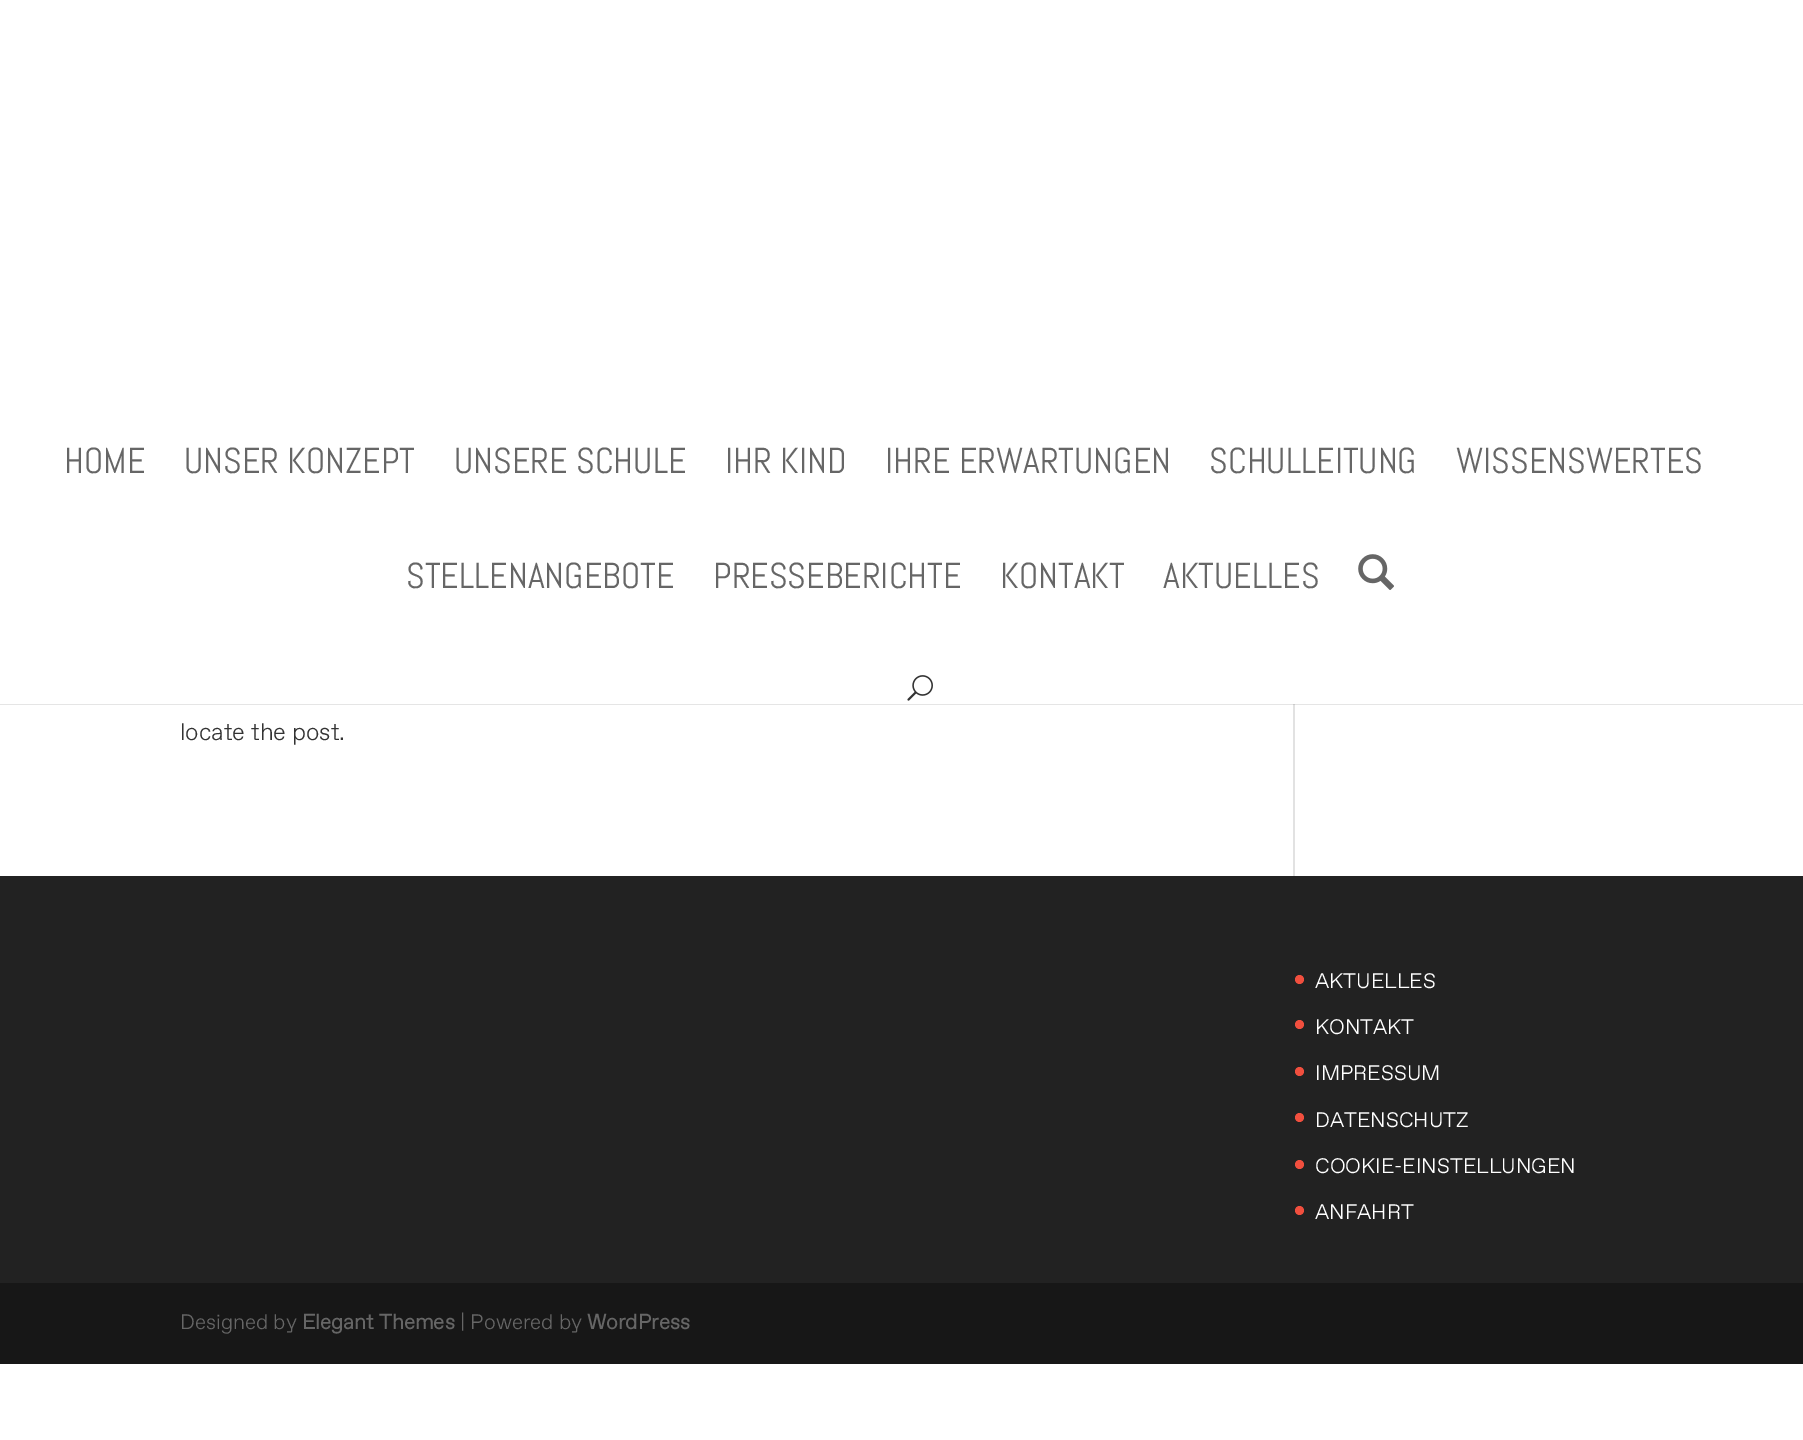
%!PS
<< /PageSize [1803 1440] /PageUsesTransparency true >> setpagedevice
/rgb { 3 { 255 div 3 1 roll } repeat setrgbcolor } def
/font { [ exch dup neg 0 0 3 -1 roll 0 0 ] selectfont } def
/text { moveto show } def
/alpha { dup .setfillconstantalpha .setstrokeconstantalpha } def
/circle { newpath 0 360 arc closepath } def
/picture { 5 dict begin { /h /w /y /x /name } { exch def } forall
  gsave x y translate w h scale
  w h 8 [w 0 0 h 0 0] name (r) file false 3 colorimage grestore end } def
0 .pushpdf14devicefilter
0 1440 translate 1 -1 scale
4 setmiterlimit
255 255 255 rgb
0 0 1803 1440 rectfill
226 226 226 rgb
1293 704 2 172 rectfill
0.1 alpha
0 0 0 rgb
0 704 1803 1 rectfill
1 alpha
(img_01.rgb) 1358 554 36 36 picture
(img_02.rgb) 907 675 26 26 picture
34 34 34 rgb
0 876 1803 407 rectfill
241 79 62 rgb
1299.5 979.5 4.5 circle fill
1299.5 1024.5 4.5 circle fill
1299.5 1071.5 4.5 circle fill
1299.5 1117.5 4.5 circle fill
1299.5 1164.5 4.5 circle fill
1299.5 1210.5 4.5 circle fill
23 23 23 rgb
0 1283 1803 81 rectfill
/Abel-Regular 36 font
102 102 102 rgb
(HOME) 64 473 text
(UNSER KONZEPT) 184 473 text
(UNSERE SCHULE) 454 473 text
(IHR KIND) 725 473 text
(IHRE ERWARTUNGEN) 885 473 text
(SCHULLEITUNG) 1209 473 text
(WISSENSWERTES) 1456 473 text
(STELLENANGEBOTE) 406 588 text
(PRESSEBERICHTE) 713 588 text
(KONTAKT) 1000 588 text
(AKTUELLES) 1163 588 text
/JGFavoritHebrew-Light 24 font
51 51 51 rgb
(locate the post.) 180 740 text
/JGFavoritHebrew-Light 21 font
255 255 255 rgb
(AKTUELLES) 1315 988 text
(KONTAKT) 1315 1034 text
(IMPRESSUM) 1315 1080 text
(DATENSCHUTZ) 1315 1127 text
(COOKIE-EINSTELLUNGEN) 1315 1173 text
(ANFAHRT) 1315 1219 text
102 102 102 rgb
(Designed by) 180 1329 text
/JGFavoritHebrew-Bold 21 font
(Elegant Themes) 302 1329 text
/JGFavoritHebrew-Light 21 font
(| Powered by) 460 1329 text
/JGFavoritHebrew-Bold 21 font
(WordPress) 587 1329 text
.poppdf14devicefilter showpage
